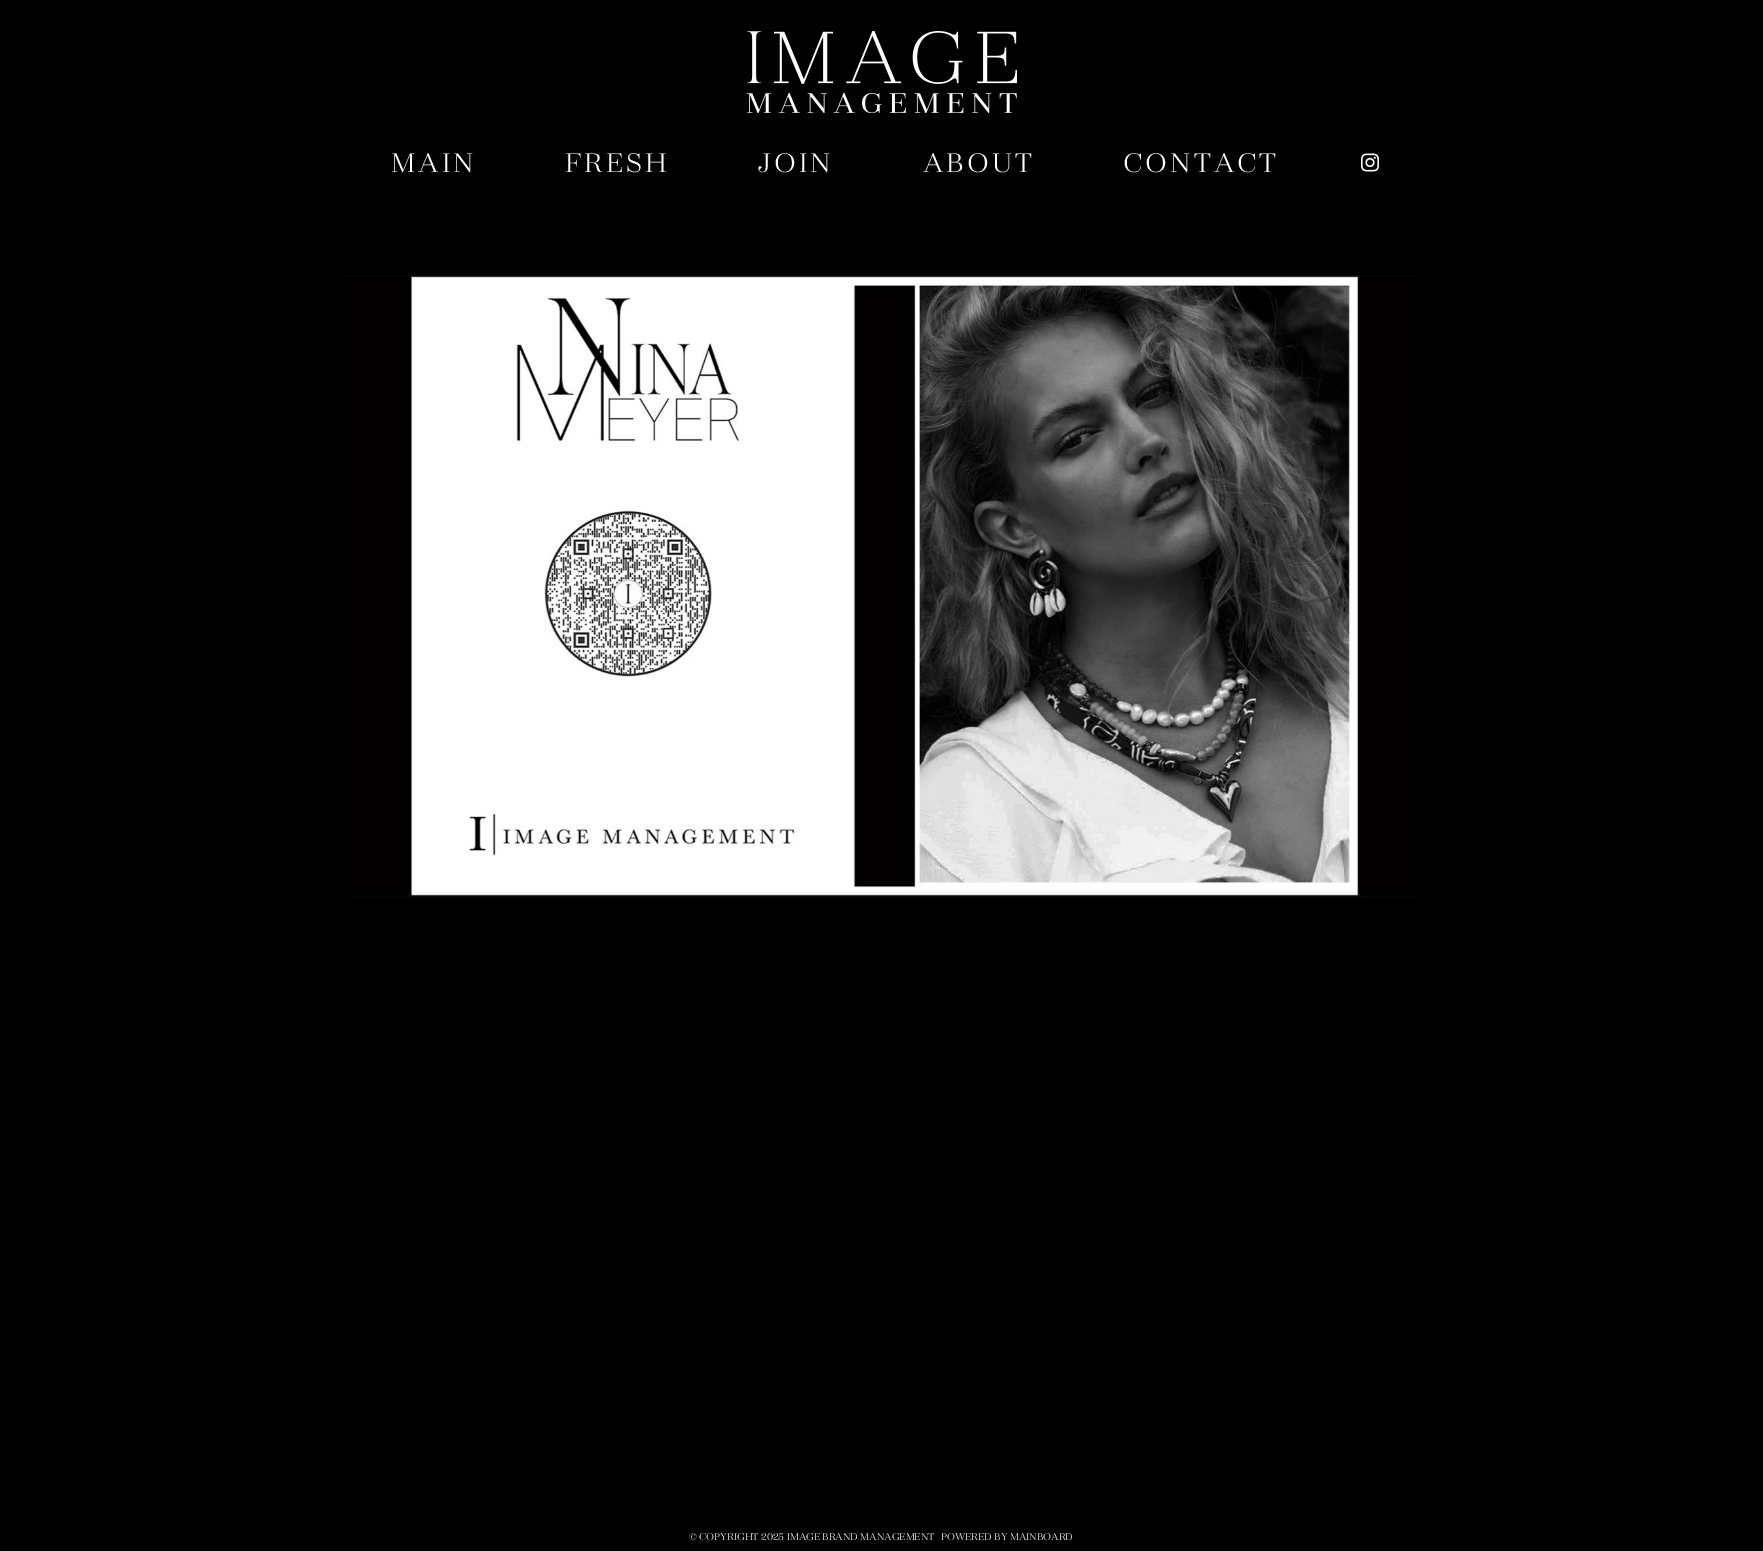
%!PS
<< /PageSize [1763 1551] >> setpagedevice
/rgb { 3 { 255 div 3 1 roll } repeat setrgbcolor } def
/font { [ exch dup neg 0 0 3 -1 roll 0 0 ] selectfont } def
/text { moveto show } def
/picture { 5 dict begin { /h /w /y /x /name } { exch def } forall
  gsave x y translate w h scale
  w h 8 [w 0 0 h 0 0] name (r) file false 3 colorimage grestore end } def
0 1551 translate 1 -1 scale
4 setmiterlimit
0 0 0 rgb
0 0 1763 1551 rectfill
(img_01.rgb) 747 31 270 82 picture
(img_02.rgb) 1361 153 18 19 picture
(img_03.rgb) 346 275 1071 622 picture
/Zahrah-Regular 30 font
255 255 255 rgb
391 172 moveto 3 0 (MAIN) ashow
565 172 moveto 3 0 (FRESH) ashow
758 172 moveto 3 0 (JOIN) ashow
923 172 moveto 3 0 (ABOUT) ashow
1123 172 moveto 3 0 (CONTACT) ashow
/Zahrah-Regular 11 font
(© COPYRIGHT 2025 IMAGE BRAND MANAGEMENT | POWERED BY MAINBOARD) 689 1540 text
showpage
